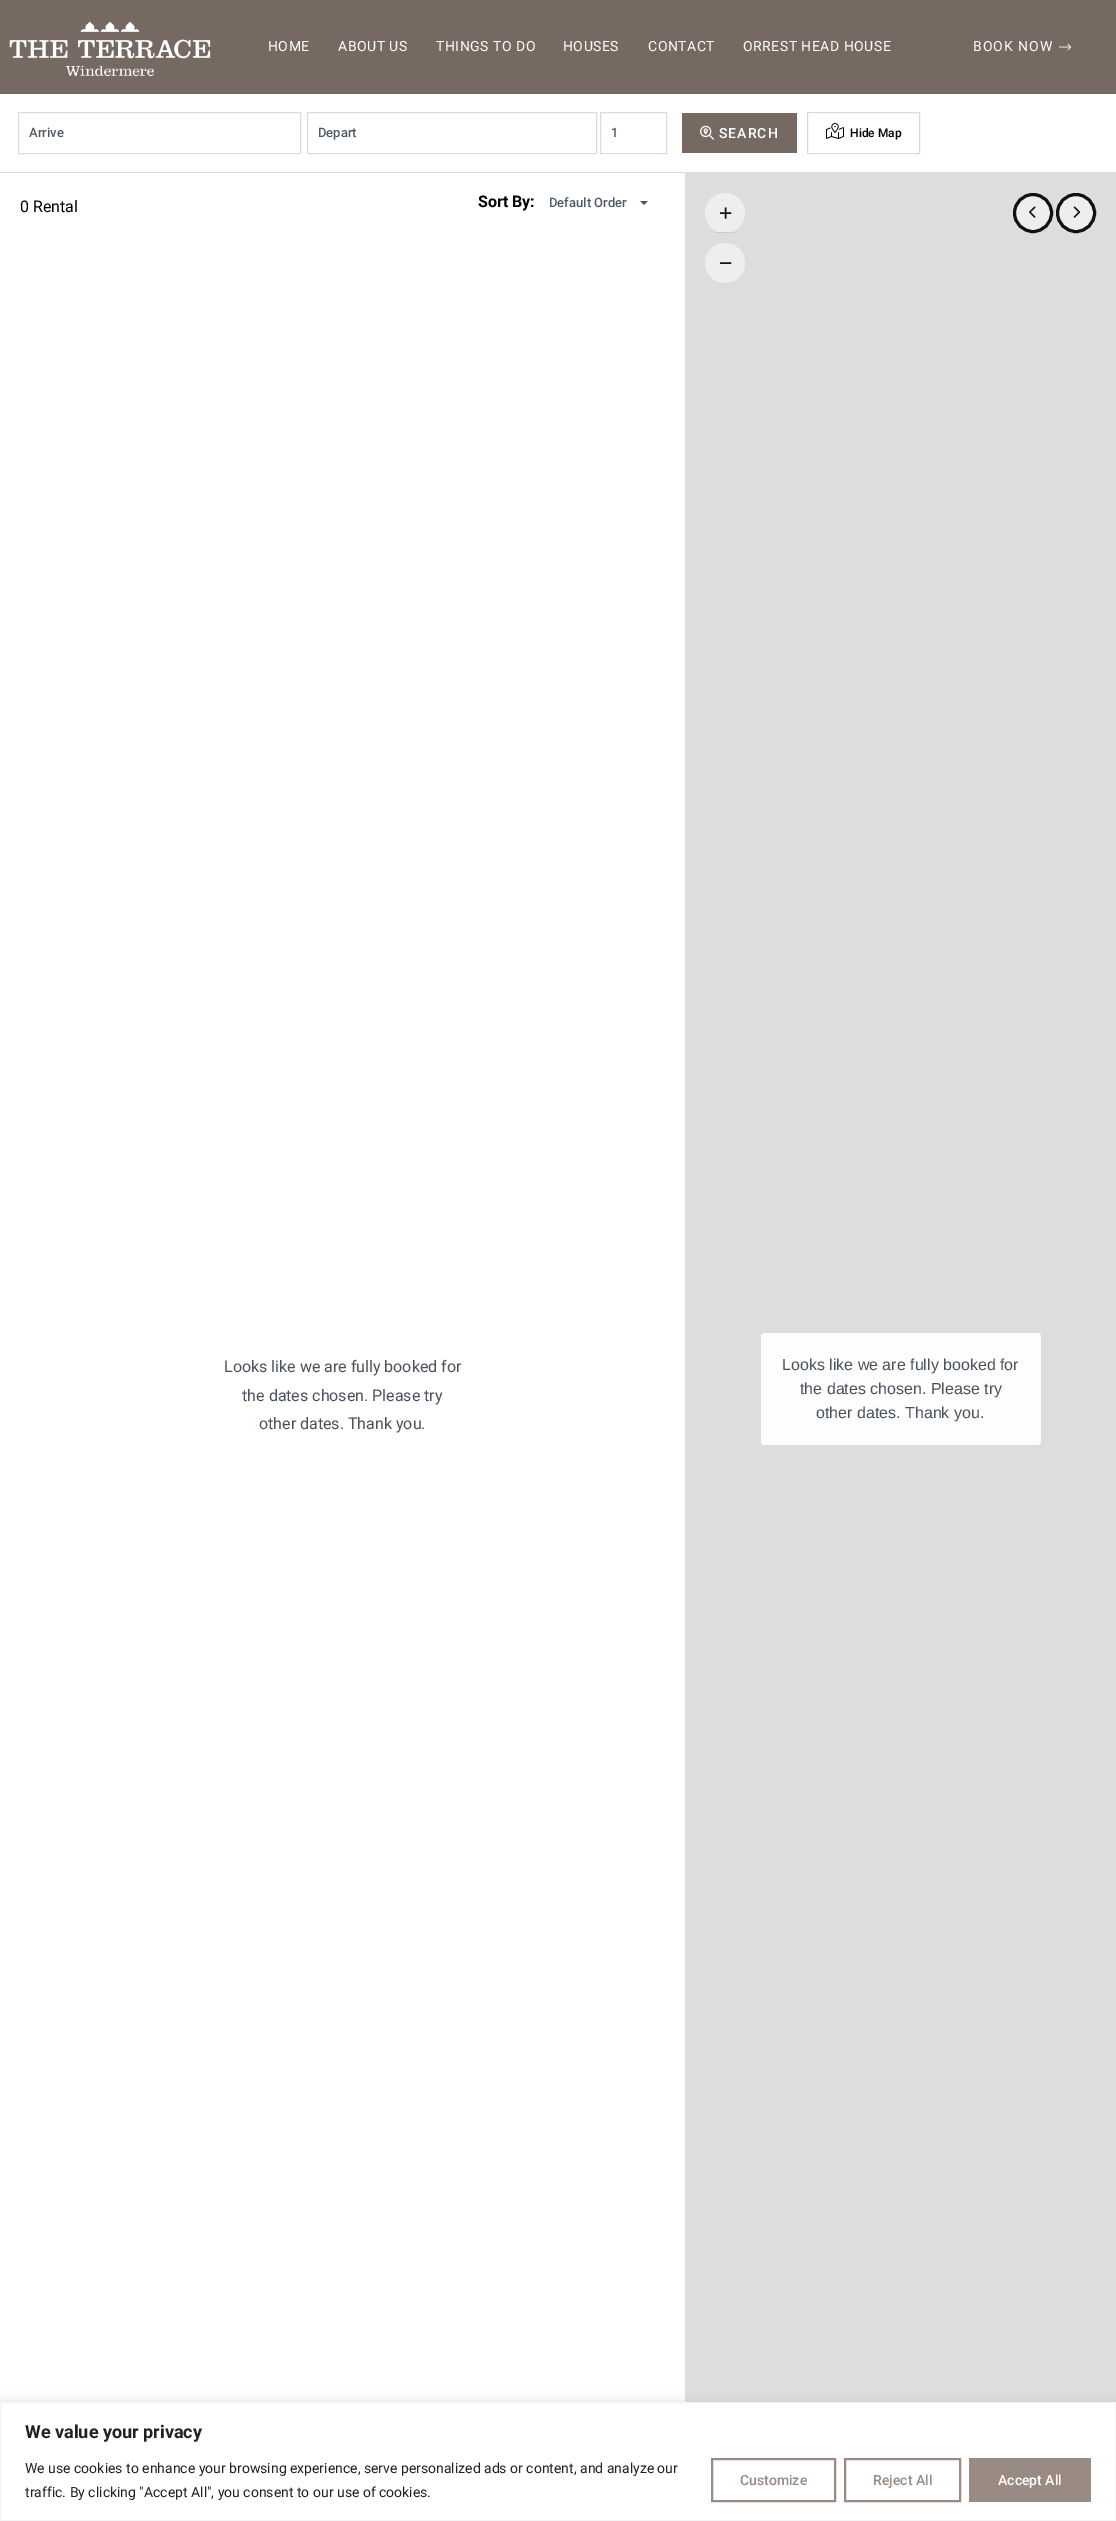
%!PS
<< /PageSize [1116 2521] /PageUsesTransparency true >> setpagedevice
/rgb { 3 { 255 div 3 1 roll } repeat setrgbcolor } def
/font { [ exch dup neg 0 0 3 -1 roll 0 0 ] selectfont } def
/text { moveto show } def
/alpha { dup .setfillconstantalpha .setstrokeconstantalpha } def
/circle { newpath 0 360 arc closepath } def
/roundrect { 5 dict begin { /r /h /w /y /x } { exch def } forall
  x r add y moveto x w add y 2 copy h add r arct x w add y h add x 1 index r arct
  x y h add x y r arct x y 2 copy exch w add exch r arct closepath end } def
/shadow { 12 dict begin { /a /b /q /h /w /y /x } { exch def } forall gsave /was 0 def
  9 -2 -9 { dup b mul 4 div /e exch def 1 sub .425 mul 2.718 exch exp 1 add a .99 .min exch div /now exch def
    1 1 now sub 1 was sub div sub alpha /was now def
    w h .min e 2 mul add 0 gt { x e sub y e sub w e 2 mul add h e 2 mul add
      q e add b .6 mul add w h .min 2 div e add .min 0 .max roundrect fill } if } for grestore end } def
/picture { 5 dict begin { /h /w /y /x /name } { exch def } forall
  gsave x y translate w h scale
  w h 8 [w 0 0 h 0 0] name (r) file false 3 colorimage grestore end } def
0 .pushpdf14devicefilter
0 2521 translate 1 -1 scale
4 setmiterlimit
255 255 255 rgb
0 0 1116 2521 rectfill
117 105 98 rgb
0 0 1116 94 rectfill
(img_01.rgb) 9 21 202 56 picture
(img_02.rgb) 1059 43 12 8 picture
216 220 225 rgb
0 172 1116 1 rectfill
18.5 112.5 282 41 rectstroke
307.5 112.5 289 41 rectstroke
600.5 112.5 66 41 rectstroke
117 105 98 rgb
682 113 115 40 rectfill
(img_03.rgb) 700 125 14 15 picture
216 220 225 rgb
807.5 112.5 112 41 rectstroke
(img_04.rgb) 826 123 18 16 picture
79 89 98 rgb
640 201 moveto 8 0 rlineto -4 4 rlineto closepath fill
221 221 221 rgb
685 173 431 2229 rectfill
238 238 238 rgb
725 213 20 circle fill
204 204 204 rgb
715 232 20 1 rectfill
238 238 238 rgb
725 263 20 circle fill
253 253 253 rgb
761 1333 280 112 4 roundrect fill
238 238 238 rgb
1033 213 18.5 circle gsave fill grestore
17 17 17 rgb
3 setlinewidth
stroke
(img_05.rgb) 1029 206 7 12 picture
238 238 238 rgb
1076 213 18.5 circle gsave fill grestore
17 17 17 rgb
stroke
(img_06.rgb) 1073 206 8 12 picture
172 171 171 rgb
0 2401 1116 119 0 5 0.3 shadow
255 255 255 rgb
0.5 2402.5 moveto 1115 0 rlineto 0 118 rlineto -1115 0 rlineto closepath gsave fill grestore
244 244 244 rgb
1 setlinewidth
stroke
153 139 131 rgb
2 setlinewidth
712 2459 123 42 rectstroke
845 2459 115 42 rectstroke
969 2458 122 44 rectfill
/Roboto-Regular 14 font
255 255 255 rgb
268 51 moveto 0.5 0 (HOME) ashow
338 51 moveto 0.5 0 (ABOUT US) ashow
436 51 moveto 0.5 0 (THINGS TO DO) ashow
563 51 moveto 0.5 0 (HOUSES) ashow
648 51 moveto 0.5 0 (CONTACT) ashow
743 51 moveto 0.5 0 (ORREST HEAD HOUSE) ashow
973 51 moveto 1 0 (BOOK NOW) ashow
/Roboto-Medium 13 font
79 89 98 rgb
(Arrive) 29 137 text
(Depart) 318 137 text
(1) 611 137 text
/Roboto-Medium 14 font
255 255 255 rgb
719 138 moveto 1 0 (SEARCH) ashow
/Roboto-Medium 12 font
0 0 0 rgb
(Hide Map) 850 137 text
/Roboto-Regular 16 font
(0 Rental) 20 212 text
/Roboto-Bold 16 font
(Sort By:) 478 207 text
/Roboto-Medium 13 font
79 89 98 rgb
(Default Order) 549 207 text
/Roboto-Regular 16 font
75 81 91 rgb
(Looks like we are fully booked for) 224 1372 text
(the dates chosen. Please try) 242 1401 text
(other dates. Thank you.) 259 1429 text
/DejaVuSansMono-Regular 22 font
17 17 17 rgb
(+) 719 220 text
(−) 719 270 text
/LiberationSans-Regular 16 font
75 81 91 rgb
(Looks like we are fully booked for) 782 1370 text
(the dates chosen. Please try) 800 1394 text
(other dates. Thank you.) 816 1418 text
/Roboto-Bold 18 font
33 33 33 rgb
(We value your privacy) 25 2438 text
/Roboto-Regular 14 font
(We use cookies to enhance your browsing experience, serve personalized ads or content, and analyze our) 25 2473 text
(traffic. By clicking "Accept All", you consent to our use of cookies.) 25 2497 text
/Roboto-Medium 14 font
153 139 131 rgb
(Customize) 740 2485 text
(Reject All) 873 2485 text
255 255 255 rgb
(Accept All) 998 2485 text
.poppdf14devicefilter showpage
